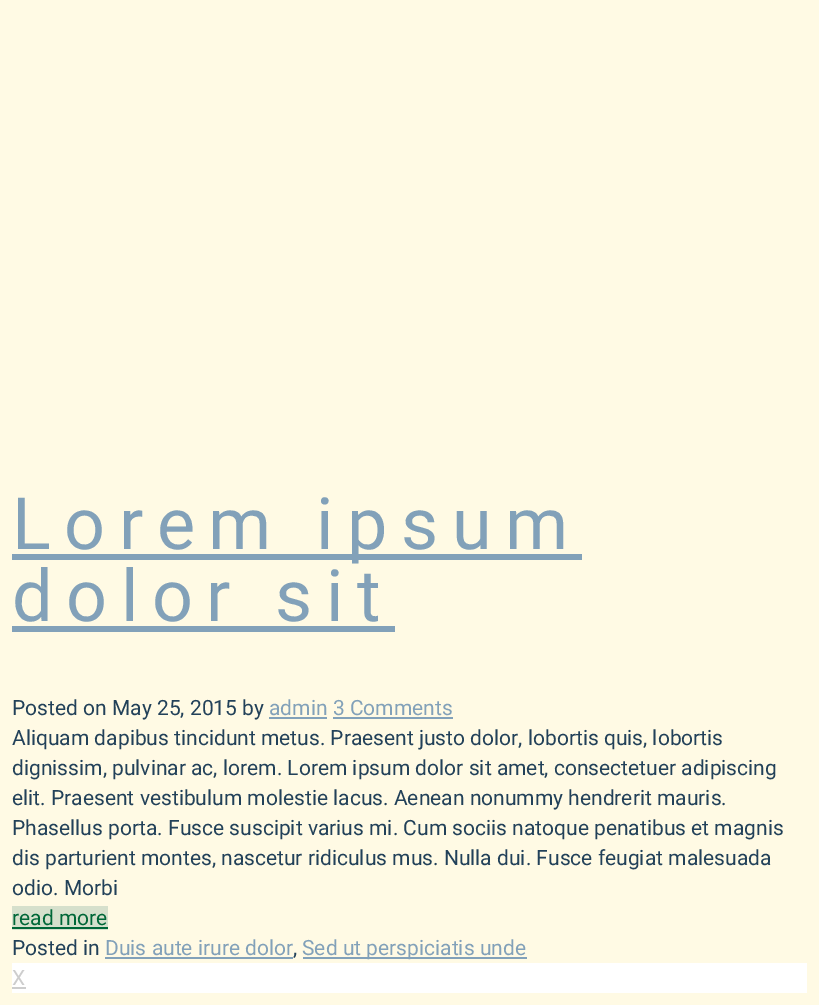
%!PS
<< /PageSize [819 1005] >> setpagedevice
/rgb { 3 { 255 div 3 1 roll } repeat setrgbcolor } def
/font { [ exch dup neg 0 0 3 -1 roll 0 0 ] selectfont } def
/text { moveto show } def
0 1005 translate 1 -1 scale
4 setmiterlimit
255 250 228 rgb
0 0 819 1005 rectfill
130 161 185 rgb
12 554 570 6 rectfill
12 626 383 6 rectfill
269 717 58 2 rectfill
333 717 120 2 rectfill
214 224 204 rgb
12 906 96 24 rectfill
0 103 56 rgb
12 927 96 2 rectfill
130 161 185 rgb
105 957 188 2 rectfill
303 957 224 2 rectfill
255 255 255 rgb
12 963 795 30 rectfill
205 205 205 rgb
12 987 14 2 rectfill
/Roboto-Regular 72 font
130 161 185 rgb
12 549 moveto 13.5 0 (Lorem ipsum) ashow
12 621 moveto 13.5 0 (dolor sit) ashow
/Roboto-Regular 21 font
34 65 89 rgb
(Posted on May 25, 2015 by) 12 715 text
130 161 185 rgb
(admin 3 Comments) 269 715 text
34 65 89 rgb
(Aliquam dapibus tincidunt metus. Praesent justo dolor, lobortis quis, lobortis) 12 745 text
(dignissim, pulvinar ac, lorem. Lorem ipsum dolor sit amet, consectetuer adipiscing) 12 775 text
(elit. Praesent vestibulum molestie lacus. Aenean nonummy hendrerit mauris.) 12 805 text
(Phasellus porta. Fusce suscipit varius mi. Cum sociis natoque penatibus et magnis) 12 835 text
(dis parturient montes, nascetur ridiculus mus. Nulla dui. Fusce feugiat malesuada) 12 865 text
(odio. Morbi) 12 895 text
0 103 56 rgb
(read more) 12 925 text
34 65 89 rgb
(Posted in) 12 955 text
130 161 185 rgb
(Duis aute irure dolor) 105 955 text
34 65 89 rgb
(,) 293 955 text
130 161 185 rgb
(Sed ut perspiciatis unde) 302 955 text
205 205 205 rgb
(X) 12 985 text
showpage
